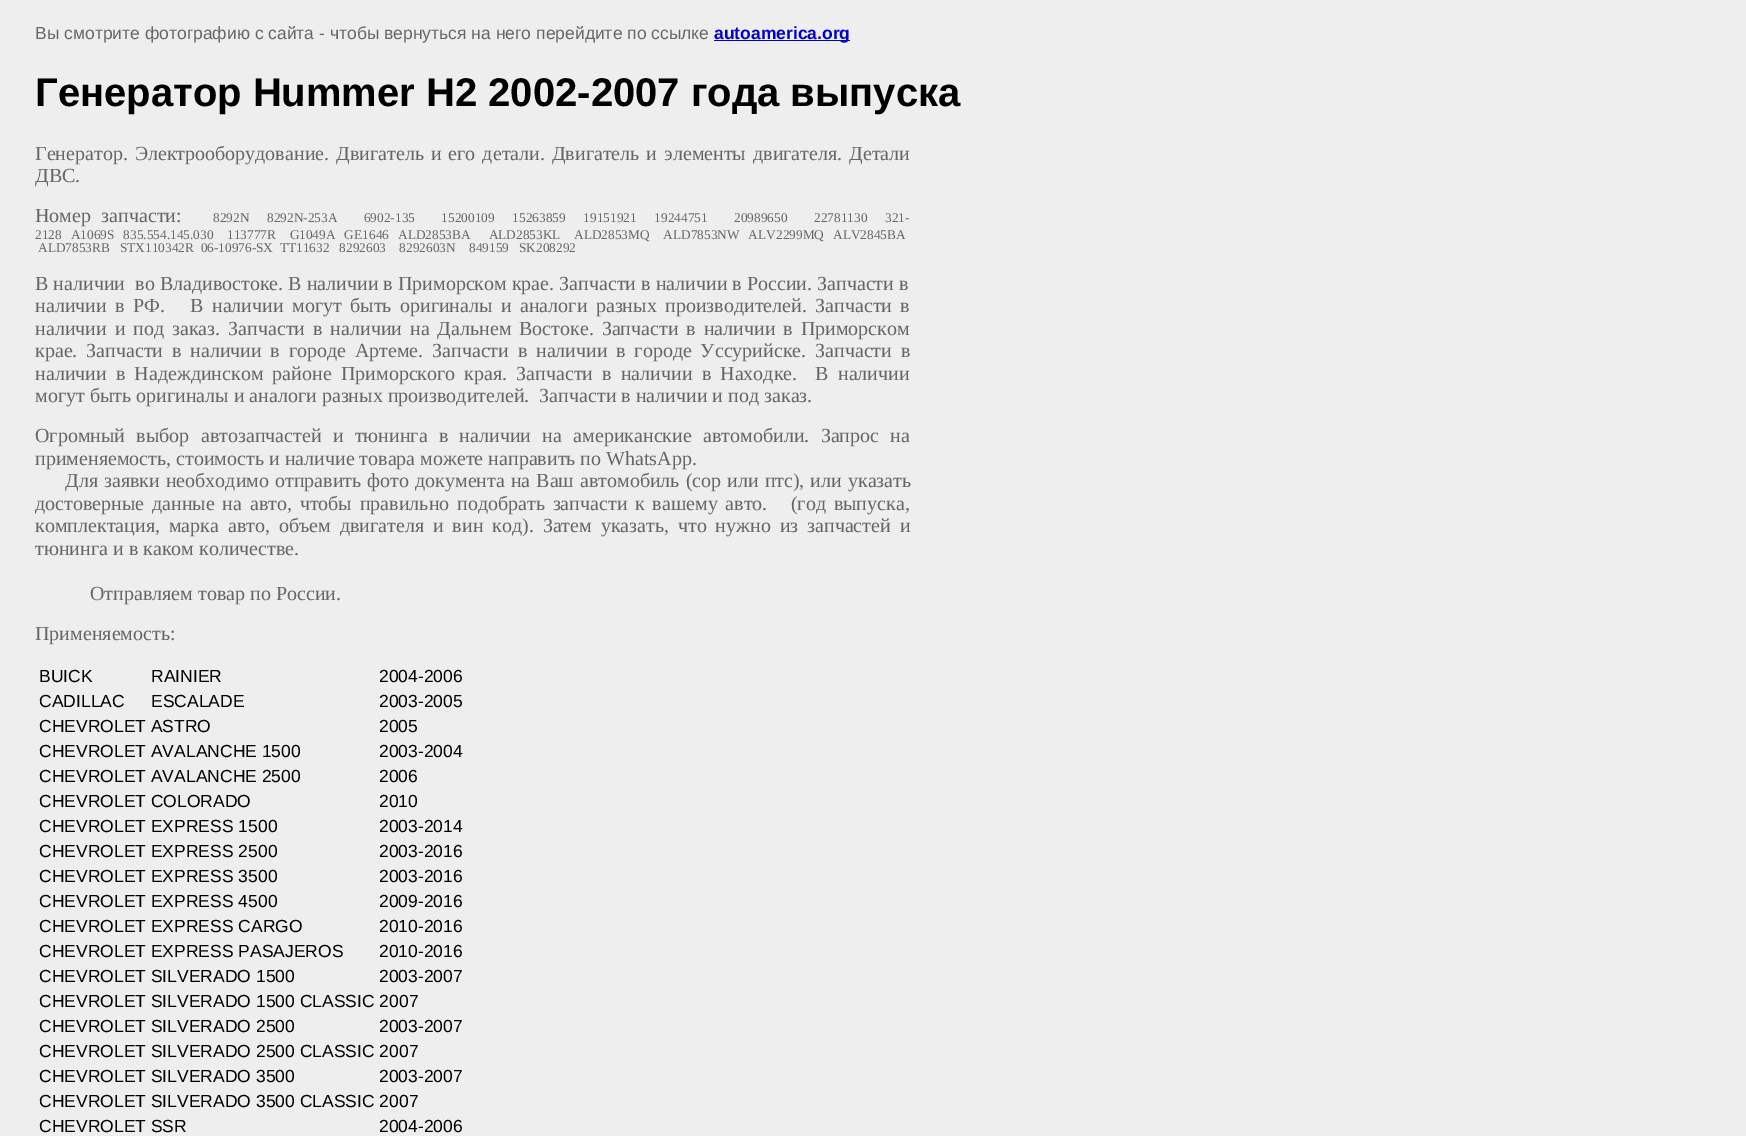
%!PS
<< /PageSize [1746 1136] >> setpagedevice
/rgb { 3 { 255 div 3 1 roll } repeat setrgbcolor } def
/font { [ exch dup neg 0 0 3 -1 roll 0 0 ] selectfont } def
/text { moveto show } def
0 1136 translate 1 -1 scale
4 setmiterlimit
238 238 238 rgb
0 0 1746 1136 rectfill
0 0 204 rgb
714 40 136 1 rectfill
/LiberationSans-Regular 17.5 font
102 102 102 rgb
(Вы смотрите фотографию с сайта - чтобы вернуться на него перейдите по ссылке) 35 39 text
/LiberationSans-Bold 17.5 font
0 0 204 rgb
(autoamerica.org) 714 39 text
/LiberationSans-Bold 40 font
0 0 0 rgb
(Генератор Hummer H2 2002-2007 года выпуска) 35 106 text
/LiberationSerif-Regular 20 font
102 102 102 rgb
35 160 moveto 2 0 32 (Генератор. Электрооборудование. Двигатель и его детали. Двигатель и элементы двигателя. Детали) widthshow
(ДВС.) 35 182 text
35 222 moveto 5.5 0 32 (Номер запчасти:) widthshow
/LiberationSerif-Regular 13.33 font
213 222 moveto 5.5 0 32 (8292N  8292N-253A   6902-135   15200109  15263859  19151921  19244751   20989650   22781130  321-) widthshow
35 239 moveto 1.2 0 32 (2128  A1069S  835.554.145.030   113777R   G1049A  GE1646  ALD2853BA    ALD2853KL   ALD2853MQ   ALD7853NW  ALV2299MQ  ALV2845BA) widthshow
(ALD7853RB   STX110342R  06-10976-SX  TT11632   8292603    8292603N    849159   SK208292) 38 252 text
/LiberationSerif-Regular 20 font
(В наличии  во Владивостоке. В наличии в Приморском крае. Запчасти в наличии в России. Запчасти в) 35 290 text
35 312 moveto 3.4 0 32 (наличии в РФ.   В наличии могут быть оригиналы и аналоги разных производителей. Запчасти в) widthshow
35 335 moveto 2.9 0 32 (наличии и под заказ. Запчасти в наличии на Дальнем Востоке. Запчасти в наличии в Приморском) widthshow
35 357 moveto 3.75 0 32 (крае. Запчасти в наличии в городе Артеме. Запчасти в наличии в городе Уссурийске. Запчасти в) widthshow
35 380 moveto 4.1 0 32 (наличии в Надеждинском районе Приморского края. Запчасти в наличии в Находке.  В наличии) widthshow
(могут быть оригиналы и аналоги разных производителей.  Запчасти в наличии и под заказ.) 35 402 text
35 442 moveto 6.25 0 32 (Огромный выбор автозапчастей и тюнинга в наличии на американские автомобили. Запрос на) widthshow
(применяемость, стоимость и наличие товара можете направить по WhatsApp.) 35 465 text
65 487 moveto 1 0 32 (Для заявки необходимо отправить фото документа на Ваш автомобиль \(сор или птс\), или указать) widthshow
35 510 moveto 2.75 0 32 (достоверные данные на авто, чтобы правильно подобрать запчасти к вашему авто.   \(год выпуска,) widthshow
35 532 moveto 3.9 0 32 (комплектация, марка авто, объем двигателя и вин код\). Затем указать, что нужно из запчастей и) widthshow
(тюнинга и в каком количестве.) 35 555 text
(Отправляем товар по России.) 90 600 text
(Применяемость:) 35 640 text
/LiberationSans-Regular 17.5 font
0 0 0 rgb
(BUICK) 39 682 text
(RAINIER) 151 682 text
(2004-2006) 379 682 text
(CADILLAC) 39 707 text
(ESCALADE) 151 707 text
(2003-2005) 379 707 text
(CHEVROLET ASTRO) 39 732 text
(2005) 379 732 text
(CHEVROLET AVALANCHE 1500) 39 757 text
(2003-2004) 379 757 text
(CHEVROLET AVALANCHE 2500) 39 782 text
(2006) 379 782 text
(CHEVROLET COLORADO) 39 807 text
(2010) 379 807 text
(CHEVROLET EXPRESS 1500) 39 832 text
(2003-2014) 379 832 text
(CHEVROLET EXPRESS 2500) 39 857 text
(2003-2016) 379 857 text
(CHEVROLET EXPRESS 3500) 39 882 text
(2003-2016) 379 882 text
(CHEVROLET EXPRESS 4500) 39 907 text
(2009-2016) 379 907 text
(CHEVROLET EXPRESS CARGO) 39 932 text
(2010-2016) 379 932 text
(CHEVROLET EXPRESS PASAJEROS) 39 957 text
(2010-2016) 379 957 text
(CHEVROLET SILVERADO 1500) 39 982 text
(2003-2007) 379 982 text
(CHEVROLET SILVERADO 1500 CLASSIC 2007) 39 1007 text
(CHEVROLET SILVERADO 2500) 39 1032 text
(2003-2007) 379 1032 text
(CHEVROLET SILVERADO 2500 CLASSIC 2007) 39 1057 text
(CHEVROLET SILVERADO 3500) 39 1082 text
(2003-2007) 379 1082 text
(CHEVROLET SILVERADO 3500 CLASSIC 2007) 39 1107 text
(CHEVROLET SSR) 39 1132 text
(2004-2006) 379 1132 text
showpage
